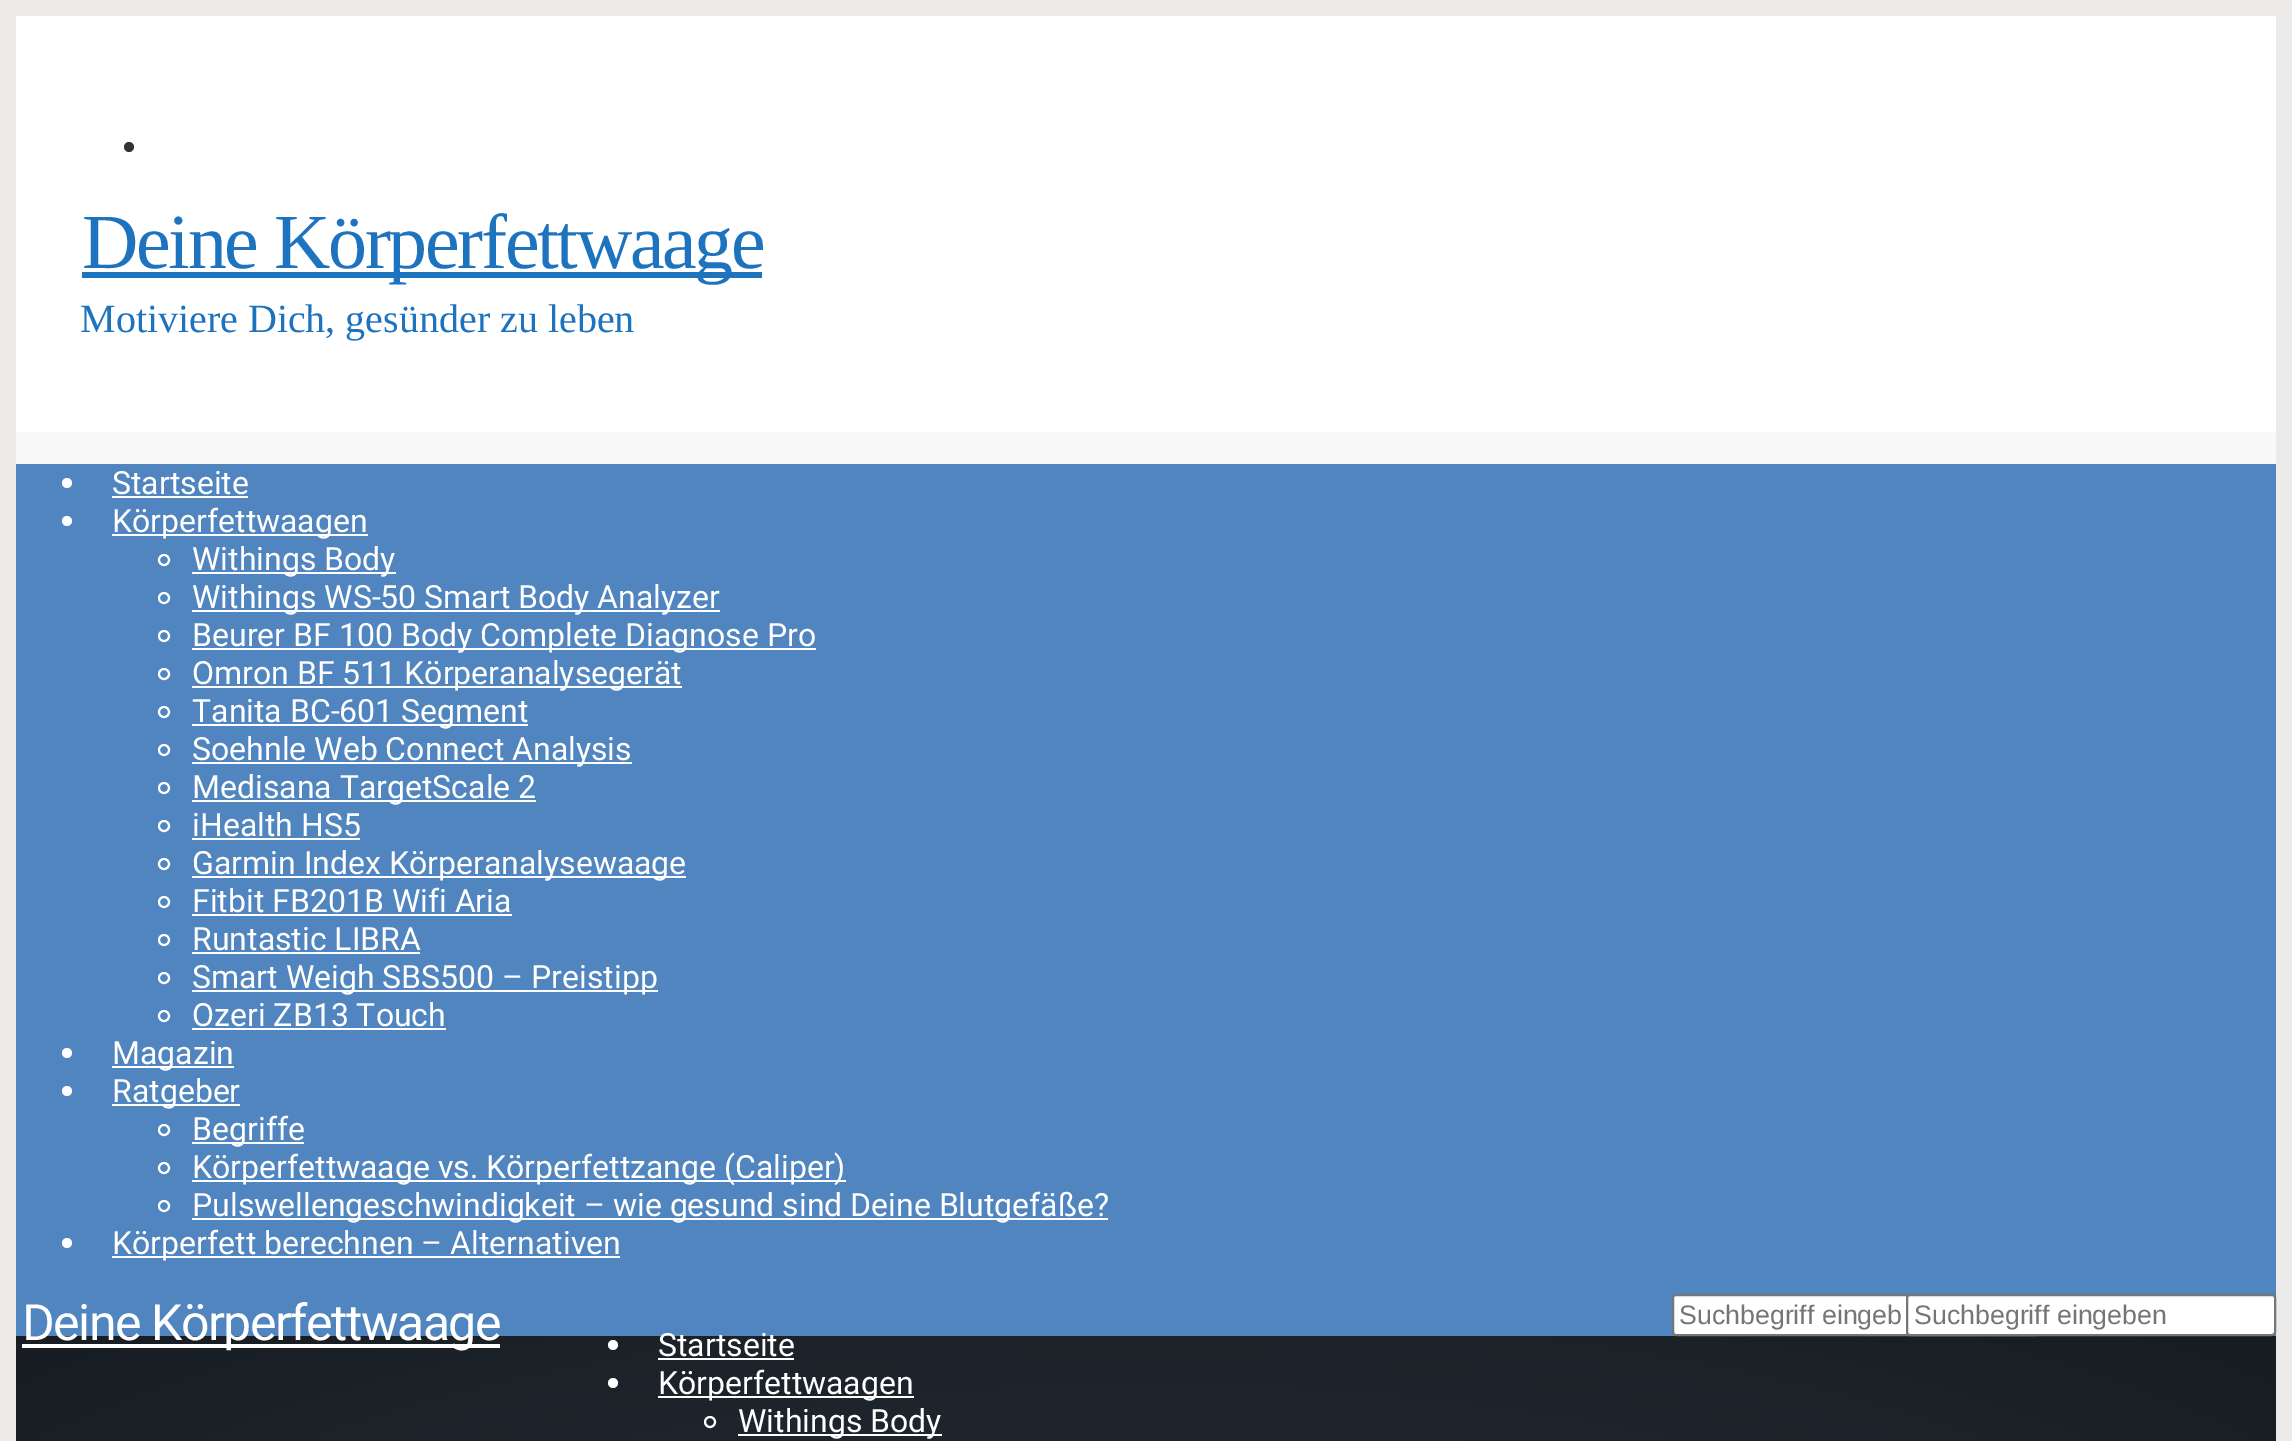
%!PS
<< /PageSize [2292 1441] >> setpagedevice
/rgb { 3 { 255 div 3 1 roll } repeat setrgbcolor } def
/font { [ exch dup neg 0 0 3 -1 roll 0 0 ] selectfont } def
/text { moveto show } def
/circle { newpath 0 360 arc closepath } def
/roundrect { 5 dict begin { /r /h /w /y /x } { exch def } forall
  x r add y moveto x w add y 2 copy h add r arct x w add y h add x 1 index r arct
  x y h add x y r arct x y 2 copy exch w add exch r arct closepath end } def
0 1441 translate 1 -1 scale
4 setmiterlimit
236 235 233 rgb
0 0 2292 1441 rectfill
249 249 249 rgb
16 432 2260 32 rectfill
255 255 255 rgb
16 16 2260 416 rectfill
51 51 51 rgb
129 147 5 circle fill
30 115 190 rgb
82 272 680 6 rectfill
80 133 191 rgb
16 464 2260 872 rectfill
255 255 255 rgb
67 483 5 circle fill
112 496 136 2 rectfill
67 521 5 circle fill
112 534 256 2 rectfill
2 setlinewidth
164 560 5 circle stroke
192 572 204 2 rectfill
164 598 5 circle stroke
192 610 528 2 rectfill
164 636 5 circle stroke
192 648 624 2 rectfill
164 674 5 circle stroke
192 686 490 2 rectfill
164 712 5 circle stroke
192 724 336 2 rectfill
164 750 5 circle stroke
192 762 440 2 rectfill
164 788 5 circle stroke
192 800 344 2 rectfill
164 826 5 circle stroke
192 838 168 2 rectfill
164 864 5 circle stroke
192 876 494 2 rectfill
164 902 5 circle stroke
192 914 320 2 rectfill
164 940 5 circle stroke
192 952 228 2 rectfill
164 978 5 circle stroke
192 990 466 2 rectfill
164 1016 5 circle stroke
192 1028 254 2 rectfill
67 1053 5 circle fill
112 1066 122 2 rectfill
67 1091 5 circle fill
112 1104 128 2 rectfill
164 1130 5 circle stroke
192 1142 112 2 rectfill
164 1168 5 circle stroke
192 1180 654 2 rectfill
164 1206 5 circle stroke
192 1218 916 2 rectfill
67 1243 5 circle fill
112 1256 508 2 rectfill
gsave 16 1336 moveto 2260 0 rlineto 0 105 rlineto -2260 0 rlineto closepath clip newpath 1146 1746 translate 1598 580 scale
<< /ShadingType 3 /ColorSpace /DeviceRGB /Coords [0 0 0 0 0 1] /Extend [true true] /Function << /FunctionType 2 /Domain [0 1] /C0 [0.153 0.188 0.224] /C1 [0.09 0.114 0.133] /N 1 >> >> shfill grestore
22 1344 478 4 rectfill
1673 1295 368 40 3 roundrect gsave fill grestore
118 118 118 rgb
stroke
255 255 255 rgb
613 1345 5 circle fill
658 1358 136 2 rectfill
613 1383 5 circle fill
658 1396 256 2 rectfill
710 1422 5 circle stroke
738 1434 204 2 rectfill
1907 1295 368 40 3 roundrect gsave fill grestore
118 118 118 rgb
stroke
/LiberationSerif-Regular 78 font
30 115 190 rgb
82 268 moveto -2.3 0 (Deine Körperfettwaage) ashow
/LiberationSerif-Regular 40 font
(Motiviere Dich, gesünder zu leben) 80 332 text
/Roboto-Regular 32 font
255 255 255 rgb
(Startseite) 112 494 text
(Körperfettwaagen) 112 532 text
(Withings Body) 192 570 text
(Withings WS-50 Smart Body Analyzer) 192 608 text
(Beurer BF 100 Body Complete Diagnose Pro) 192 646 text
(Omron BF 511 Körperanalysegerät) 192 684 text
(Tanita BC-601 Segment) 192 722 text
(Soehnle Web Connect Analysis) 192 760 text
(Medisana TargetScale 2) 192 798 text
(iHealth HS5) 192 836 text
(Garmin Index Körperanalysewaage) 192 874 text
(Fitbit FB201B Wifi Aria) 192 912 text
(Runtastic LIBRA) 192 950 text
(Smart Weigh SBS500 – Preistipp) 192 988 text
(Ozeri ZB13 Touch) 192 1026 text
(Magazin) 112 1064 text
(Ratgeber) 112 1102 text
(Begriffe) 192 1140 text
(Körperfettwaage vs. Körperfettzange \(Caliper\)) 192 1178 text
(Pulswellengeschwindigkeit – wie gesund sind Deine Blutgefäße?) 192 1216 text
(Körperfett berechnen – Alternativen) 112 1254 text
/Roboto-Regular 50 font
22 1340 moveto -1.5 0 (Deine Körperfettwaage) ashow
/LiberationSans-Regular 26.75 font
117 117 117 rgb
(Suchbegriff eingeb) 1679 1324 text
/Roboto-Regular 32 font
255 255 255 rgb
(Startseite) 658 1356 text
(Körperfettwaagen) 658 1394 text
(Withings Body) 738 1432 text
/LiberationSans-Regular 26.75 font
117 117 117 rgb
(Suchbegriff eingeben) 1914 1324 text
showpage
